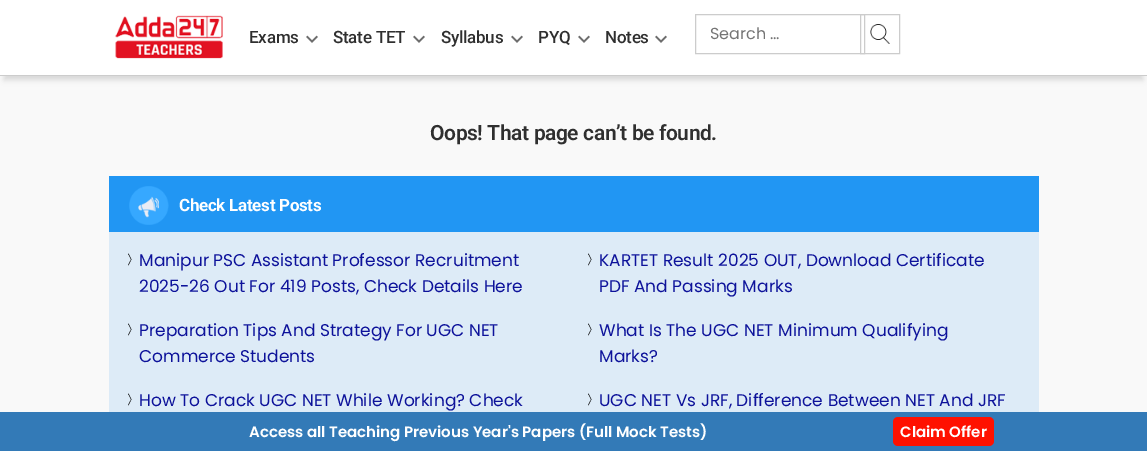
%!PS
<< /PageSize [1147 451] /PageUsesTransparency true >> setpagedevice
/rgb { 3 { 255 div 3 1 roll } repeat setrgbcolor } def
/font { [ exch dup neg 0 0 3 -1 roll 0 0 ] selectfont } def
/text { moveto show } def
/alpha { dup .setfillconstantalpha .setstrokeconstantalpha } def
/roundrect { 5 dict begin { /r /h /w /y /x } { exch def } forall
  x r add y moveto x w add y 2 copy h add r arct x w add y h add x 1 index r arct
  x y h add x y r arct x y 2 copy exch w add exch r arct closepath end } def
/shadow { 12 dict begin { /a /b /q /h /w /y /x } { exch def } forall gsave /was 0 def
  9 -2 -9 { dup b mul 4 div /e exch def 1 sub .425 mul 2.718 exch exp 1 add a .99 .min exch div /now exch def
    1 1 now sub 1 was sub div sub alpha /was now def
    w h .min e 2 mul add 0 gt { x e sub y e sub w e 2 mul add h e 2 mul add
      q e add b .6 mul add w h .min 2 div e add .min 0 .max roundrect fill } if } for grestore end } def
/picture { 5 dict begin { /h /w /y /x /name } { exch def } forall
  gsave x y translate w h scale
  w h 8 [w 0 0 h 0 0] name (r) file false 3 colorimage grestore end } def
0 .pushpdf14devicefilter
0 451 translate 1 -1 scale
4 setmiterlimit
249 249 249 rgb
0 0 1147 451 rectfill
214 214 214 rgb
4 12 1139 68 0 3 1 shadow
255 255 255 rgb
0 0 1147 75 rectfill
204 204 204 rgb
0 75 1147 1 rectfill
(img_01.rgb) 115 15 108 44 picture
(img_02.rgb) 306 35 12 8 picture
(img_02.rgb) 413 35 12 8 picture
(img_02.rgb) 511 35 12 8 picture
(img_02.rgb) 578 35 12 8 picture
(img_02.rgb) 655 35 12 8 picture
695.5 14.5 169 39 rectstroke
(img_03.rgb) 870 24 20 20 picture
860.5 14.5 39 39 rectstroke
33 150 243 rgb
109 176 930 56 rectfill
(img_04.rgb) 129 186 40 39 picture
221 235 247 rgb
109 232 930 180 rectfill
51 122 183 rgb
0 412 1147 39 rectfill
255 17 0 rgb
893 417 101 29 5 roundrect fill
/Roboto-Medium 17 font
47 47 47 rgb
249 43 moveto -0.25 0 (Exams) ashow
333 43 moveto -0.25 0 (State TET) ashow
441 43 moveto -0.25 0 (Syllabus) ashow
538 43 moveto -0.25 0 (PYQ) ashow
605 43 moveto -0.25 0 (Notes) ashow
/Poppins-Regular 16 font
117 117 117 rgb
(Search …) 710 39 text
/Roboto-SemiBold 21 font
47 47 47 rgb
430 140 moveto -0.4 0 (Oops! That page can’t be found.) ashow
/Roboto-Bold 17 font
255 255 255 rgb
179 211 moveto -0.3 0 (Check Latest Posts) ashow
/WenQuanYiZenHei-Medium 14 font
0 0 0 rgb
gsave 136 266 translate -90 rotate 0 0 moveto (﹀) show grestore
/Poppins-Regular 17 font
13 18 154 rgb
(Manipur PSC Assistant Professor Recruitment) 139 266 text
(2025-26 Out For 419 Posts, Check Details Here) 139 292 text
/WenQuanYiZenHei-Medium 14 font
0 0 0 rgb
gsave 596 266 translate -90 rotate 0 0 moveto (﹀) show grestore
/Poppins-Regular 17 font
13 18 154 rgb
(KARTET Result 2025 OUT, Download Certificate) 599 266 text
(PDF And Passing Marks) 599 292 text
/WenQuanYiZenHei-Medium 14 font
0 0 0 rgb
gsave 136 336 translate -90 rotate 0 0 moveto (﹀) show grestore
/Poppins-Regular 17 font
13 18 154 rgb
(Preparation Tips And Strategy For UGC NET) 139 336 text
(Commerce Students) 139 362 text
/WenQuanYiZenHei-Medium 14 font
0 0 0 rgb
gsave 596 336 translate -90 rotate 0 0 moveto (﹀) show grestore
/Poppins-Regular 17 font
13 18 154 rgb
(What Is The UGC NET Minimum Qualifying) 599 336 text
(Marks?) 599 362 text
/WenQuanYiZenHei-Medium 14 font
0 0 0 rgb
gsave 136 406 translate -90 rotate 0 0 moveto (﹀) show grestore
/Poppins-Regular 17 font
13 18 154 rgb
(How To Crack UGC NET While Working? Check) 139 406 text
/WenQuanYiZenHei-Medium 14 font
0 0 0 rgb
gsave 596 406 translate -90 rotate 0 0 moveto (﹀) show grestore
/Poppins-Regular 17 font
13 18 154 rgb
(UGC NET Vs JRF, Difference Between NET And JRF) 599 406 text
/Poppins-SemiBold 15 font
255 255 255 rgb
(Access all Teaching Previous Year's Papers \(Full Mock Tests\)) 249 437 text
(Claim Offer) 900 437 text
.poppdf14devicefilter showpage
